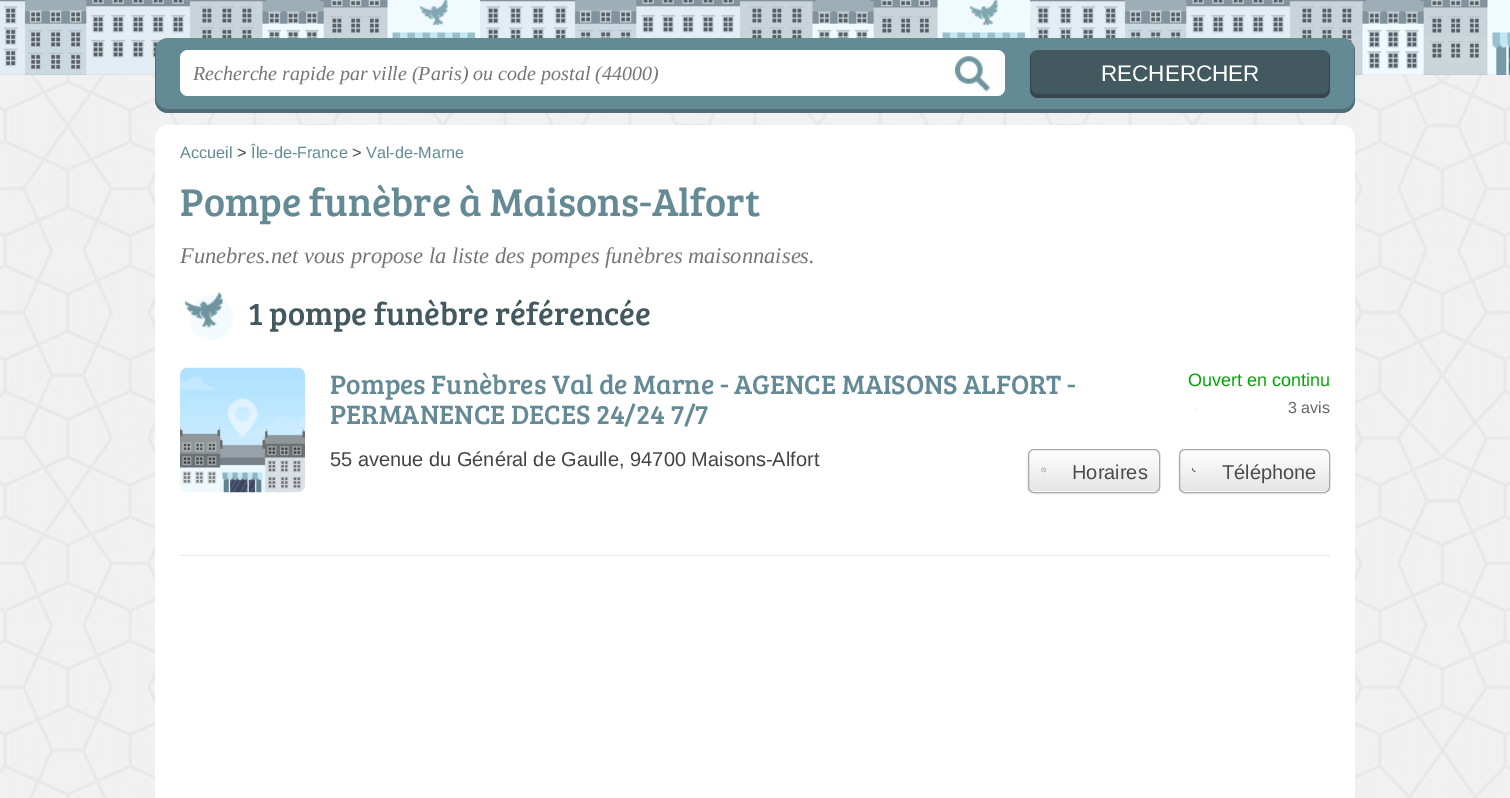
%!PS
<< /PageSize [1510 798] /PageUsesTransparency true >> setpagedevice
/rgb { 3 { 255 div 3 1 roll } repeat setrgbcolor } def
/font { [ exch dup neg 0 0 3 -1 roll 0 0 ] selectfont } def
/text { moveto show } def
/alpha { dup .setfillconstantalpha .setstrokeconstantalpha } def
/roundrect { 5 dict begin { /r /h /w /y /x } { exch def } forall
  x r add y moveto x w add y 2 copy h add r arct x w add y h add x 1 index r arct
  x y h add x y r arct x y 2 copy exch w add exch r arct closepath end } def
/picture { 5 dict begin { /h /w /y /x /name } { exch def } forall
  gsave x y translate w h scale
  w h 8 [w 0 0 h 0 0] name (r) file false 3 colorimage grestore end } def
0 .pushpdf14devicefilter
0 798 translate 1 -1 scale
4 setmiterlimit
255 255 255 rgb
0 0 1510 798 rectfill
(img_01.rgb) 0 74 1510 724 picture
(img_02.rgb) 0 0 1510 75 picture
100 138 149 rgb
155 38 1200 75 13 roundrect fill
0.2 alpha
0 0 0 rgb
156 45 moveto -1 2 -1 4 -1 6 rcurveto 0 49 rlineto 0 7 6 13 13 13 rcurveto 1174 0 rlineto 7 0 13 -6 13 -13 rcurveto 0 -49 rlineto 0 -2 0 -4 -1 -6 rcurveto 0 53 rlineto 0 6 -5 11 -12 11 rcurveto -1174 0 rlineto -7 0 -12 -5 -12 -11 rcurveto closepath fill
1 alpha
255 255 255 rgb
180 50 825 46 8 roundrect fill
(img_03.rgb) 955 56 36 36 picture
66 89 95 rgb
1030 50 300 48 8 roundrect fill
0.2 alpha
0 0 0 rgb
1031 54 moveto -1 1 -1 2 -1 4 rcurveto 0 32 rlineto 0 4 4 8 8 8 rcurveto 284 0 rlineto 4 0 8 -4 8 -8 rcurveto 0 -32 rlineto 0 -2 0 -3 -1 -4 rcurveto 0 23 rlineto 0 6 2 17 -7 17 rcurveto -284 0 rlineto -9 0 -7 -11 -7 -17 rcurveto closepath fill
1 alpha
255 255 255 rgb
168 125 moveto 1174 0 rlineto 7 0 13 6 13 13 rcurveto 0 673 rlineto -1200 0 rlineto 0 -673 rlineto 0 -7 6 -13 13 -13 rcurveto closepath fill
234 233 223 rgb
180 555 1150 1 rectfill
(img_04.rgb) 184 292 50 48 picture
(img_05.rgb) 180 367 125 126 picture
214 214 214 rgb
1196 408 1 1 rectfill
245 245 245 rgb
1029 451 moveto -2 1 -3 3 -3 6 rcurveto 0 30 rlineto 0 4 4 8 8 8 rcurveto 119 0 rlineto 4 0 8 -4 8 -8 rcurveto 0 -30 rlineto 0 -2 -1 -3 -2 -5 rcurveto 1 3 rlineto 0 31 rlineto 0 4 -3 6 -6 6 rcurveto -120 0 rlineto -4 0 -6 -2 -6 -6 rcurveto 0 -31 rlineto 0 -2 0 -3 1 -4 rcurveto closepath fill
gsave
1028 449 132 44 6 roundrect clip newpath
gsave 1028 450 moveto 132 0 rlineto 0 41 rlineto -132 0 rlineto closepath clip newpath
<< /ShadingType 2 /ColorSpace /DeviceRGB /Coords [1094 450 1094 491] /Extend [true true] /Function << /FunctionType 2 /Domain [0 1] /C0 [1 1 1] /C1 [0.898 0.898 0.898] /N 1 >> >> shfill grestore
gsave 1028 491 moveto 132 0 rlineto 0 2 rlineto -132 0 rlineto closepath clip newpath
<< /ShadingType 2 /ColorSpace /DeviceRGB /Coords [1094 491 1094 533] /Extend [true true] /Function << /FunctionType 2 /Domain [0 1] /C0 [1 1 1] /C1 [0.898 0.898 0.898] /N 1 >> >> shfill grestore
grestore
170 170 170 rgb
1028.5 449.5 131 43 5.5 roundrect stroke
(img_06.rgb) 1041 467 5 6 picture
245 245 245 rgb
1179 453 moveto -1 4 rlineto 0 30 rlineto 0 4 4 8 8 8 rcurveto 137 0 rlineto 4 0 8 -4 8 -8 rcurveto 0 -30 rlineto 0 -2 -1 -3 -2 -5 rcurveto 1 3 rlineto 0 31 rlineto 0 4 -3 6 -6 6 rcurveto -139 0 rlineto -4 0 -6 -2 -6 -6 rcurveto closepath fill
gsave
1179 449 151 44 6 roundrect clip newpath
gsave 1179 450 moveto 151 0 rlineto 0 41 rlineto -151 0 rlineto closepath clip newpath
<< /ShadingType 2 /ColorSpace /DeviceRGB /Coords [1254 450 1254 491] /Extend [true true] /Function << /FunctionType 2 /Domain [0 1] /C0 [1 1 1] /C1 [0.898 0.898 0.898] /N 1 >> >> shfill grestore
gsave 1179 491 moveto 151 0 rlineto 0 2 rlineto -151 0 rlineto closepath clip newpath
<< /ShadingType 2 /ColorSpace /DeviceRGB /Coords [1254 491 1254 533] /Extend [true true] /Function << /FunctionType 2 /Domain [0 1] /C0 [1 1 1] /C1 [0.898 0.898 0.898] /N 1 >> >> shfill grestore
grestore
170 170 170 rgb
1179.5 449.5 150 43 5.5 roundrect stroke
(img_07.rgb) 1191 468 5 4 picture
/LiberationSerif-Italic 20 font
117 117 117 rgb
(Recherche rapide par ville \(Paris\) ou code postal \(44000\)) 193 80 text
/LiberationSans-Regular 22.5 font
255 255 255 rgb
(RECHERCHER) 1101 81 text
/LiberationSans-Regular 16.25 font
100 138 149 rgb
(Accueil) 180 158 text
68 68 68 rgb
(>) 237 158 text
100 138 149 rgb
(Île-de-France) 251 158 text
68 68 68 rgb
(>) 352 158 text
100 138 149 rgb
(Val-de-Marne) 366 158 text
/BreeSerif-Regular 40 font
(Pompe funèbre à Maisons-Alfort) 180 216 text
/LiberationSerif-Italic 22.5 font
117 117 117 rgb
(Funebres.net vous propose la liste des pompes funèbres maisonnaises.) 180 263 text
/BreeSerif-Regular 32.5 font
66 89 95 rgb
(1 pompe funèbre référencée) 248 325 text
/BreeSerif-Regular 27.5 font
100 138 149 rgb
(Pompes Funèbres Val de Marne - AGENCE MAISONS ALFORT -) 330 394 text
(PERMANENCE DECES 24/24 7/7) 330 424 text
/LiberationSans-Regular 18 font
0 165 0 rgb
(Ouvert en continu) 1188 386 text
/LiberationSans-Regular 16 font
102 102 102 rgb
(3 avis) 1288 413 text
/LiberationSans-Regular 20 font
68 68 68 rgb
(55 avenue du Général de Gaulle, 94700 Maisons-Alfort) 330 466 text
75 75 75 rgb
(Horaires) 1072 479 text
(Téléphone) 1222 479 text
.poppdf14devicefilter showpage
